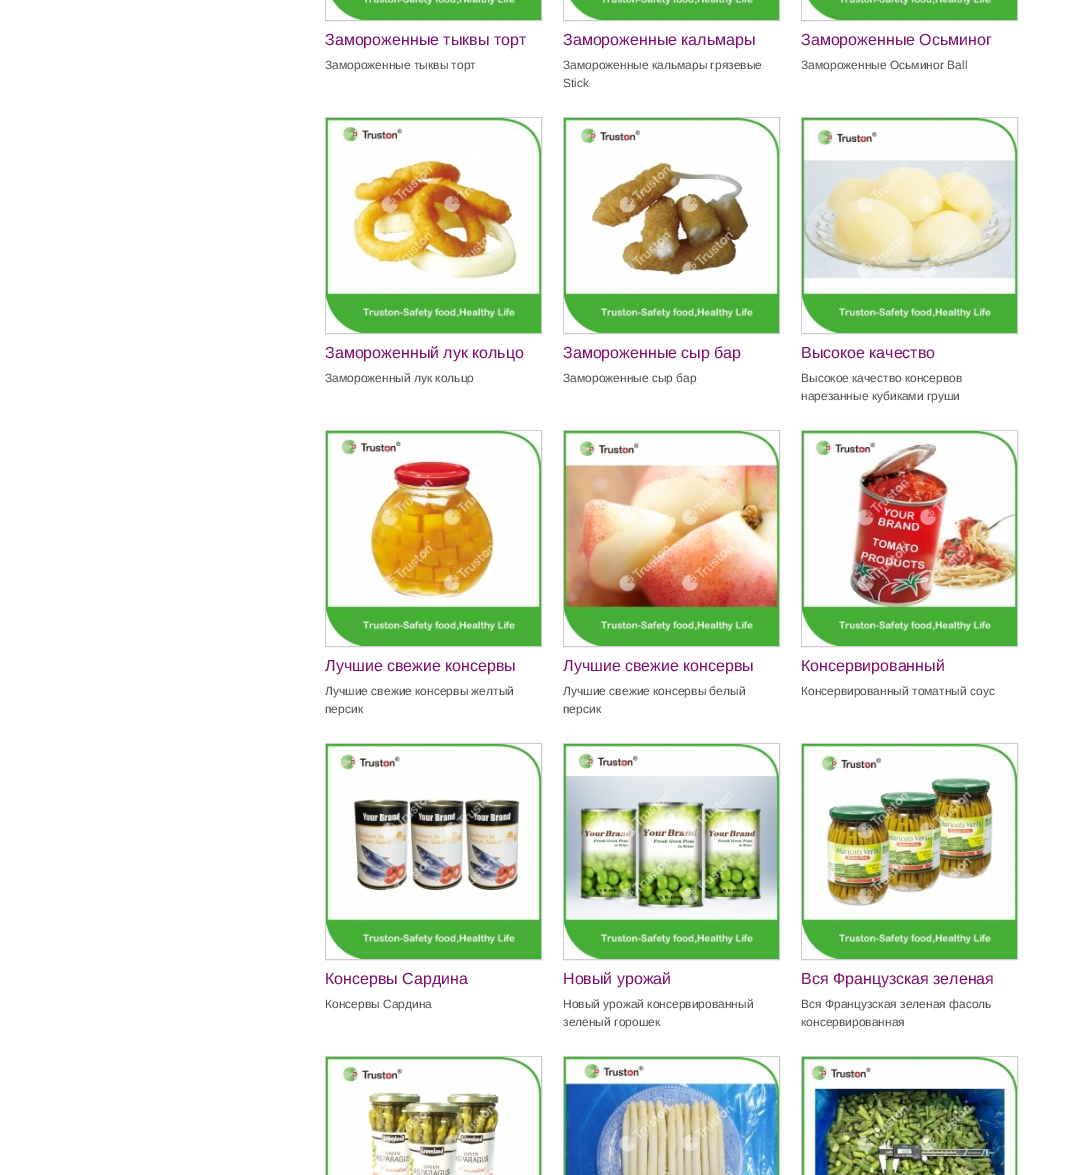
%!PS
<< /PageSize [1070 1175] >> setpagedevice
/rgb { 3 { 255 div 3 1 roll } repeat setrgbcolor } def
/font { [ exch dup neg 0 0 3 -1 roll 0 0 ] selectfont } def
/text { moveto show } def
/picture { 5 dict begin { /h /w /y /x /name } { exch def } forall
  gsave x y translate w h scale
  w h 8 [w 0 0 h 0 0] name (r) file false 3 colorimage grestore end } def
0 1175 translate 1 -1 scale
4 setmiterlimit
255 255 255 rgb
0 0 1070 1175 rectfill
205 204 204 rgb
325.5 -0.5 216 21 rectstroke
(img_01.rgb) 326 0 215 20 picture
563.5 -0.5 216 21 rectstroke
(img_01.rgb) 564 0 215 20 picture
801.5 -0.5 216 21 rectstroke
(img_02.rgb) 802 0 215 20 picture
325.5 117.5 216 216 rectstroke
(img_03.rgb) 326 118 215 215 picture
563.5 117.5 216 216 rectstroke
(img_04.rgb) 564 118 215 215 picture
801.5 117.5 216 216 rectstroke
(img_05.rgb) 802 118 215 215 picture
325.5 430.5 216 216 rectstroke
(img_06.rgb) 326 431 215 215 picture
563.5 430.5 216 216 rectstroke
(img_07.rgb) 564 431 215 215 picture
801.5 430.5 216 216 rectstroke
(img_08.rgb) 802 431 215 215 picture
325.5 743.5 216 216 rectstroke
(img_09.rgb) 326 744 215 215 picture
563.5 743.5 216 216 rectstroke
(img_10.rgb) 564 744 215 215 picture
801.5 743.5 216 216 rectstroke
(img_11.rgb) 802 744 215 215 picture
325.5 1056.5 216 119 rectstroke
(img_12.rgb) 326 1057 215 118 picture
563.5 1056.5 216 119 rectstroke
(img_13.rgb) 564 1057 215 118 picture
801.5 1056.5 216 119 rectstroke
(img_14.rgb) 802 1057 215 118 picture
/LiberationSans-Regular 16 font
126 17 109 rgb
(Замороженные тыквы торт) 325 45 text
/LiberationSans-Regular 12 font
82 79 79 rgb
(Замороженные тыквы торт) 325 69 text
/LiberationSans-Regular 16 font
126 17 109 rgb
(Замороженные кальмары) 563 45 text
/LiberationSans-Regular 12 font
82 79 79 rgb
(Замороженные кальмары грязевые) 563 69 text
(Stick) 563 87 text
/LiberationSans-Regular 16 font
126 17 109 rgb
(Замороженные Осьминог) 801 45 text
/LiberationSans-Regular 12 font
82 79 79 rgb
(Замороженные Осьминог Ball) 801 69 text
/LiberationSans-Regular 16 font
126 17 109 rgb
(Замороженный лук кольцо) 325 358 text
/LiberationSans-Regular 12 font
82 79 79 rgb
(Замороженный лук кольцо) 325 382 text
/LiberationSans-Regular 16 font
126 17 109 rgb
(Замороженные сыр бар) 563 358 text
/LiberationSans-Regular 12 font
82 79 79 rgb
(Замороженные сыр бар) 563 382 text
/LiberationSans-Regular 16 font
126 17 109 rgb
(Высокое качество) 801 358 text
/LiberationSans-Regular 12 font
82 79 79 rgb
(Высокое качество консервов) 801 382 text
(нарезанные кубиками груши) 801 400 text
/LiberationSans-Regular 16 font
126 17 109 rgb
(Лучшие свежие консервы) 325 671 text
/LiberationSans-Regular 12 font
82 79 79 rgb
(Лучшие свежие консервы желтый) 325 695 text
(персик) 325 713 text
/LiberationSans-Regular 16 font
126 17 109 rgb
(Лучшие свежие консервы) 563 671 text
/LiberationSans-Regular 12 font
82 79 79 rgb
(Лучшие свежие консервы белый) 563 695 text
(персик) 563 713 text
/LiberationSans-Regular 16 font
126 17 109 rgb
(Консервированный) 801 671 text
/LiberationSans-Regular 12 font
82 79 79 rgb
(Консервированный томатный соус) 801 695 text
/LiberationSans-Regular 16 font
126 17 109 rgb
(Консервы Сардина) 325 984 text
/LiberationSans-Regular 12 font
82 79 79 rgb
(Консервы Сардина) 325 1008 text
/LiberationSans-Regular 16 font
126 17 109 rgb
(Новый урожай) 563 984 text
/LiberationSans-Regular 12 font
82 79 79 rgb
(Новый урожай консервированный) 563 1008 text
(зеленый горошек) 563 1026 text
/LiberationSans-Regular 16 font
126 17 109 rgb
(Вся Французская зеленая) 801 984 text
/LiberationSans-Regular 12 font
82 79 79 rgb
(Вся Французская зеленая фасоль) 801 1008 text
(консервированная) 801 1026 text
showpage
